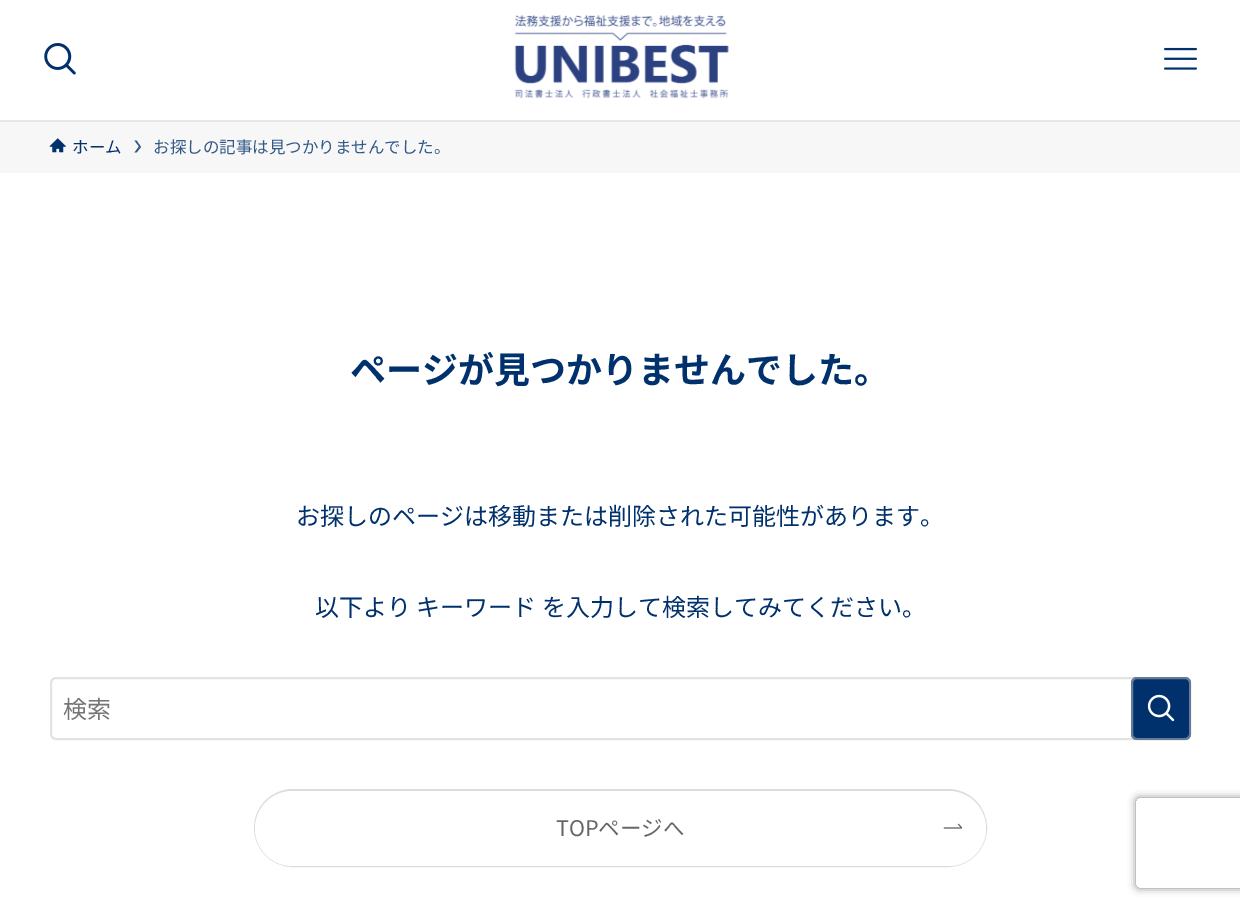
%!PS
<< /PageSize [1240 908] /PageUsesTransparency true >> setpagedevice
/rgb { 3 { 255 div 3 1 roll } repeat setrgbcolor } def
/font { [ exch dup neg 0 0 3 -1 roll 0 0 ] selectfont } def
/text { moveto show } def
/alpha { dup .setfillconstantalpha .setstrokeconstantalpha } def
/roundrect { 5 dict begin { /r /h /w /y /x } { exch def } forall
  x r add y moveto x w add y 2 copy h add r arct x w add y h add x 1 index r arct
  x y h add x y r arct x y 2 copy exch w add exch r arct closepath end } def
/shadow { 12 dict begin { /a /b /q /h /w /y /x } { exch def } forall gsave /was 0 def
  9 -2 -9 { dup b mul 4 div /e exch def 1 sub .425 mul 2.718 exch exp 1 add a .99 .min exch div /now exch def
    1 1 now sub 1 was sub div sub alpha /was now def
    w h .min e 2 mul add 0 gt { x e sub y e sub w e 2 mul add h e 2 mul add
      q e add b .6 mul add w h .min 2 div e add .min 0 .max roundrect fill } if } for grestore end } def
/picture { 5 dict begin { /h /w /y /x /name } { exch def } forall
  gsave x y translate w h scale
  w h 8 [w 0 0 h 0 0] name (r) file false 3 colorimage grestore end } def
0 .pushpdf14devicefilter
0 908 translate 1 -1 scale
4 setmiterlimit
255 255 255 rgb
0 0 1240 908 rectfill
230 230 230 rgb
0 120 1240 2 rectfill
(img_01.rgb) 44 43 32 32 picture
(img_02.rgb) 514 15 215 84 picture
(img_03.rgb) 1164 47 33 23 picture
247 247 247 rgb
0 122 1240 51 rectfill
(img_04.rgb) 49 138 17 15 picture
49 89 136 rgb
136.5 140.5 moveto -2 0 rlineto 4.5 6 rlineto -4.5 6 rlineto 2 0 rlineto 4.5 -5.5 rlineto closepath fill
227 227 227 rgb
2 setlinewidth
51 678 1139 61 5 roundrect stroke
0 49 108 rgb
1131 677 60 63 6 roundrect fill
0.5 alpha
199 199 199 rgb
1132 678 58 61 5 roundrect stroke
1 alpha
(img_05.rgb) 1147 694 28 28 picture
220 220 220 rgb
255 790 731 76 38 roundrect stroke
255 255 255 rgb
255 791 731 75 37.5 roundrect fill
(img_06.rgb) 943 823 20 6 picture
gsave
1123 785 moveto 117 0 rlineto 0 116 rlineto -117 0 rlineto closepath 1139 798 moveto 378 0 rlineto 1.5 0 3 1.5 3 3 rcurveto 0 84 rlineto 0 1.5 -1.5 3 -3 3 rcurveto -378 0 rlineto -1.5 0 -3 -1.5 -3 -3 rcurveto 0 -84 rlineto 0 -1.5 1.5 -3 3 -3 rcurveto closepath eoclip newpath
128 128 128 rgb
1136 798 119 90 3 4 1 shadow
grestore
/NotoSansJP-Regular 16.5 font
0 49 108 rgb
(ホーム) 72 153 text
49 89 136 rgb
(お探しの記事は見つかりませんでした。) 153 153 text
/NotoSansJP-Bold 36 font
0 49 108 rgb
(ページが見つかりませんでした。) 350 383 text
/NotoSansJP-Regular 24 font
(お探しのページは移動または削除された可能性があります。) 296 525 text
(以下より キーワード を入力して検索してみてください。) 315 616 text
117 117 117 rgb
(検索) 63 718 text
/NotoSansJP-Regular 21.5 font
102 102 102 rgb
(TOPページへ) 556 836 text
.poppdf14devicefilter showpage
